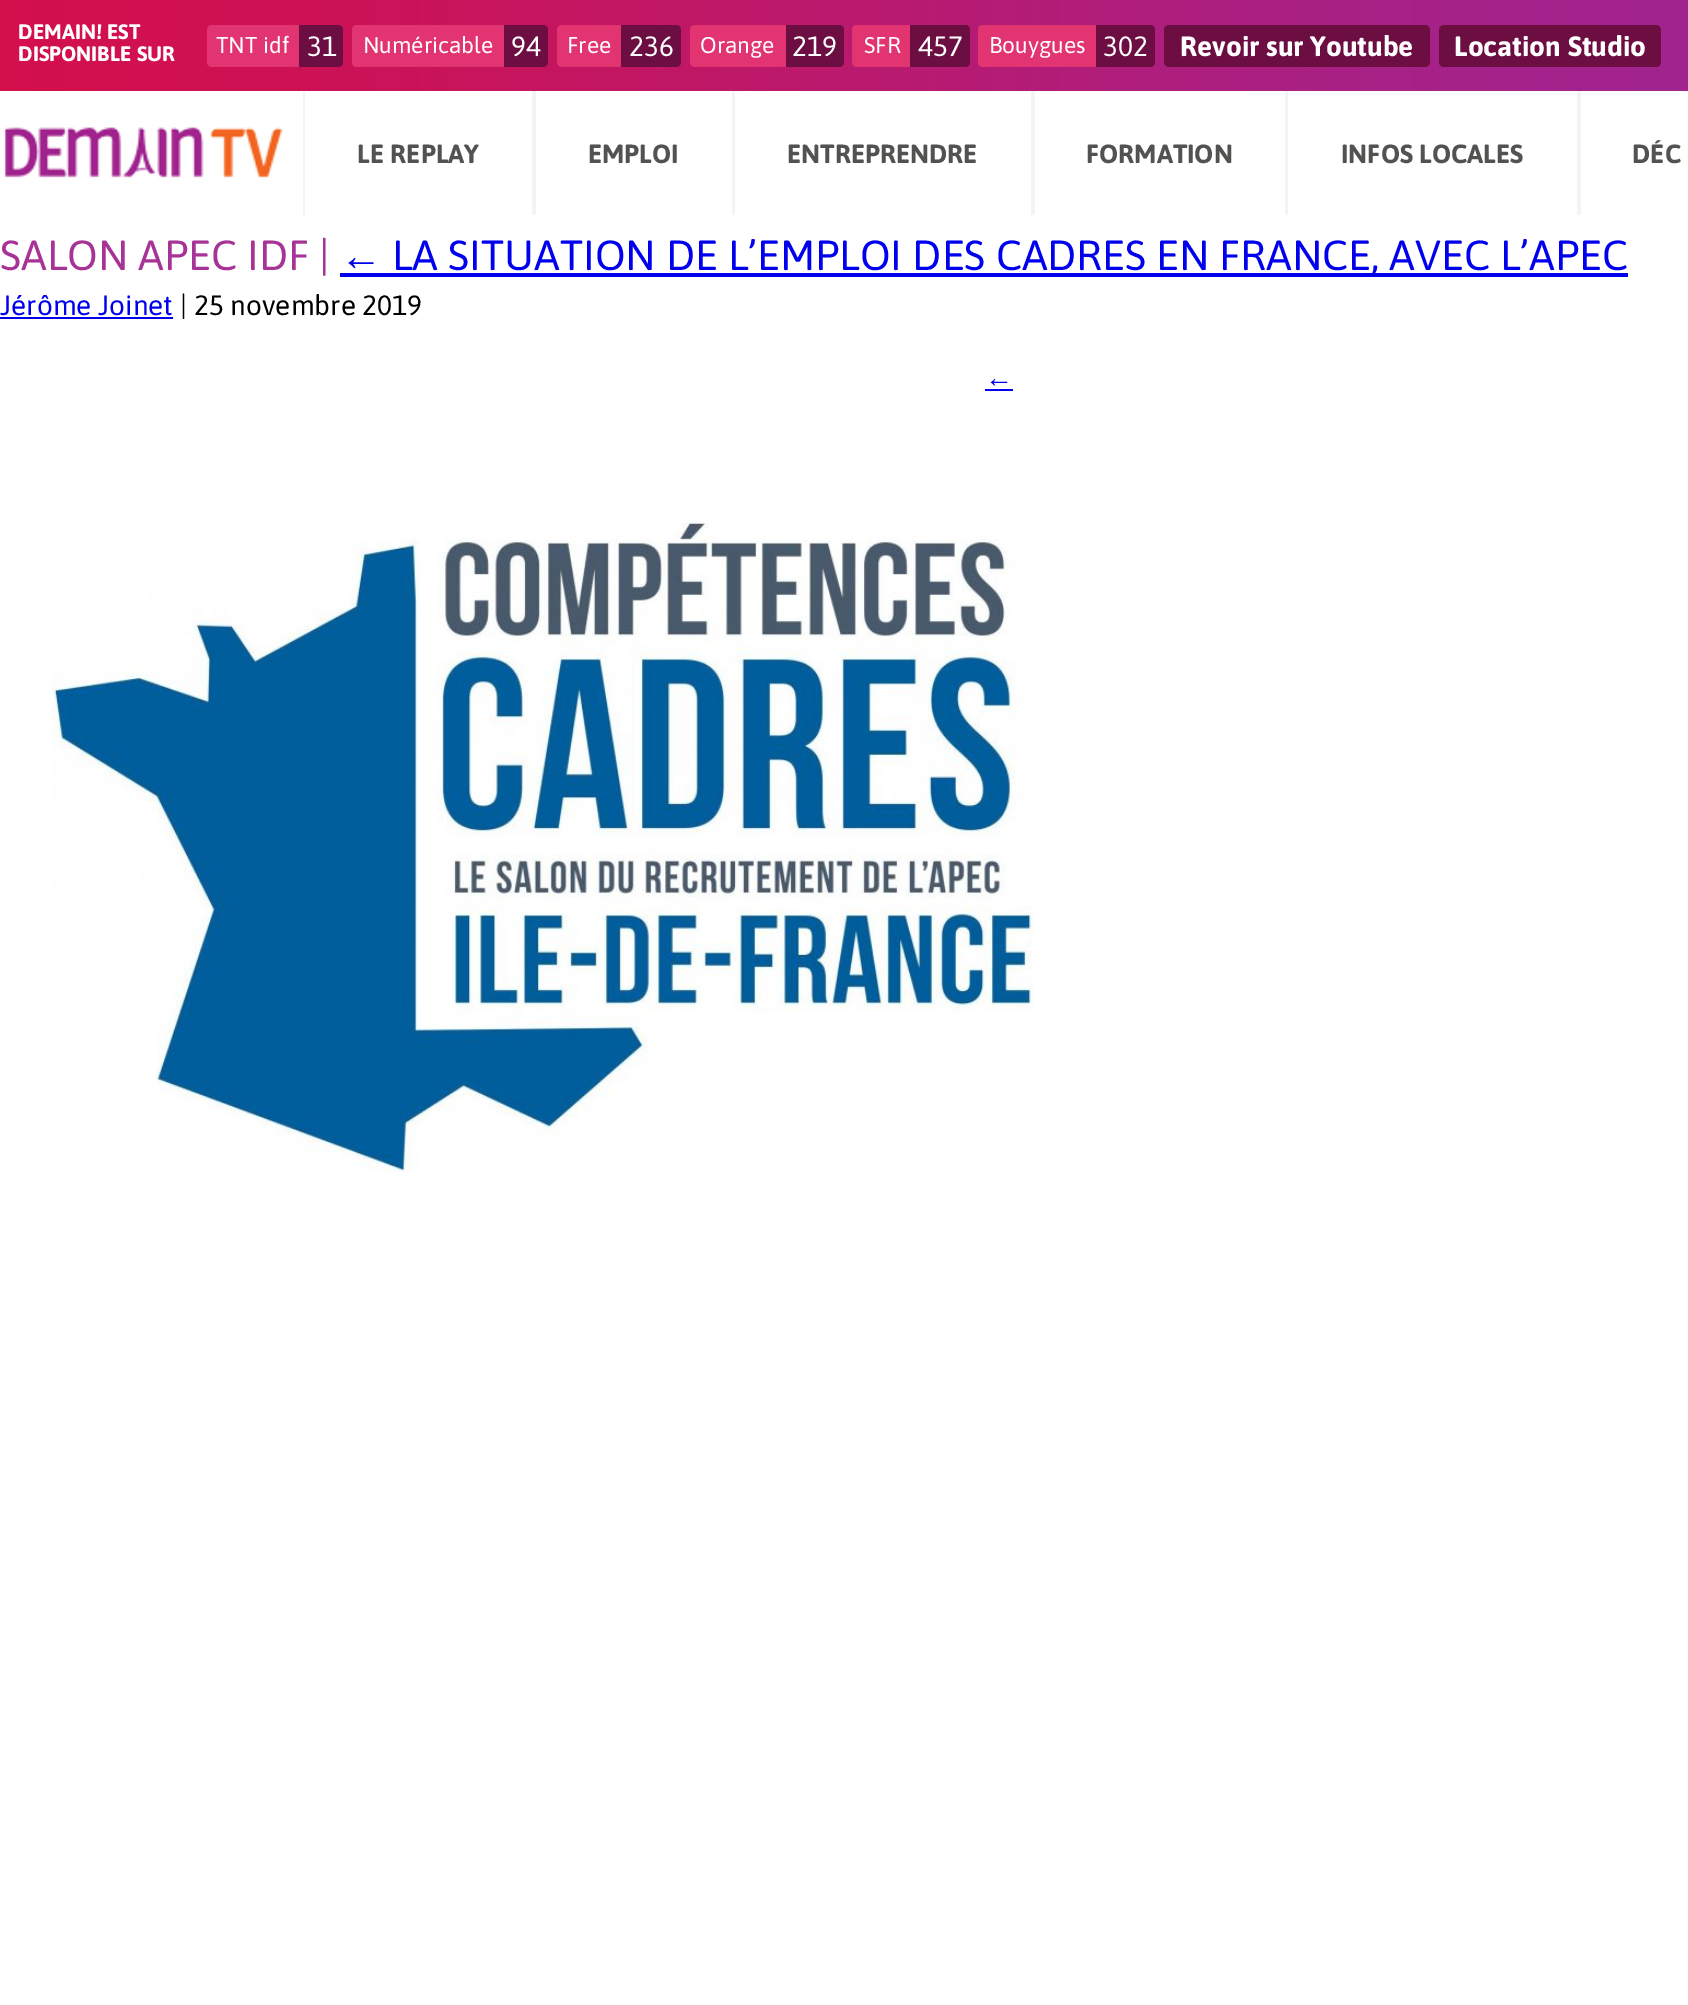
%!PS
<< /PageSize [1688 2005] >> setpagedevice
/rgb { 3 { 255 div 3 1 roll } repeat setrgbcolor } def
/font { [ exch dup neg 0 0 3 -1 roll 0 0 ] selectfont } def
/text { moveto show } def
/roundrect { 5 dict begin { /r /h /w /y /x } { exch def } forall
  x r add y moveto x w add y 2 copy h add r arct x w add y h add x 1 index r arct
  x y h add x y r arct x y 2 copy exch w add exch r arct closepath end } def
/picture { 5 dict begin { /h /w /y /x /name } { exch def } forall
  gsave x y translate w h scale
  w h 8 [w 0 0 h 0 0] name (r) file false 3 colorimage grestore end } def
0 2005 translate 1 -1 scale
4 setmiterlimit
255 255 255 rgb
0 0 1688 2005 rectfill
(img_01.rgb) 0 0 1688 91 picture
225 52 112 rgb
212 25 moveto 87 0 rlineto 0 42 rlineto -87 0 rlineto -3 0 -5 -2 -5 -5 rcurveto 0 -32 rlineto 0 -3 2 -5 5 -5 rcurveto closepath fill
109 14 67 rgb
299 25 moveto 39 0 rlineto 3 0 5 2 5 5 rcurveto 0 32 rlineto 0 3 -2 5 -5 5 rcurveto -39 0 rlineto closepath fill
225 52 112 rgb
357 25 moveto 147 0 rlineto 0 42 rlineto -147 0 rlineto -3 0 -5 -2 -5 -5 rcurveto 0 -32 rlineto 0 -3 2 -5 5 -5 rcurveto closepath fill
109 14 67 rgb
504 25 moveto 39 0 rlineto 3 0 5 2 5 5 rcurveto 0 32 rlineto 0 3 -2 5 -5 5 rcurveto -39 0 rlineto closepath fill
225 52 112 rgb
562 25 moveto 59 0 rlineto 0 42 rlineto -59 0 rlineto -3 0 -5 -2 -5 -5 rcurveto 0 -32 rlineto 0 -3 2 -5 5 -5 rcurveto closepath fill
109 14 67 rgb
621 25 moveto 55 0 rlineto 3 0 5 2 5 5 rcurveto 0 32 rlineto 0 3 -2 5 -5 5 rcurveto -55 0 rlineto closepath fill
225 52 112 rgb
695 25 moveto 91 0 rlineto 0 42 rlineto -91 0 rlineto -3 0 -5 -2 -5 -5 rcurveto 0 -32 rlineto 0 -3 2 -5 5 -5 rcurveto closepath fill
109 14 67 rgb
786 25 moveto 53 0 rlineto 3 0 5 2 5 5 rcurveto 0 32 rlineto 0 3 -2 5 -5 5 rcurveto -53 0 rlineto closepath fill
225 52 112 rgb
857 25 moveto 53 0 rlineto 0 42 rlineto -53 0 rlineto -3 0 -5 -2 -5 -5 rcurveto 0 -32 rlineto 0 -3 2 -5 5 -5 rcurveto closepath fill
109 14 67 rgb
910 25 moveto 55 0 rlineto 3 0 5 2 5 5 rcurveto 0 32 rlineto 0 3 -2 5 -5 5 rcurveto -55 0 rlineto closepath fill
225 52 112 rgb
983 25 moveto 113 0 rlineto 0 42 rlineto -113 0 rlineto -3 0 -5 -2 -5 -5 rcurveto 0 -32 rlineto 0 -3 2 -5 5 -5 rcurveto closepath fill
109 14 67 rgb
1096 25 moveto 54 0 rlineto 3 0 5 2 5 5 rcurveto 0 32 rlineto 0 3 -2 5 -5 5 rcurveto -54 0 rlineto closepath fill
1164 25 266 42 5 roundrect fill
1439 25 222 42 5 roundrect fill
(img_02.rgb) 4 127 279 51 picture
244 244 244 rgb
532 91 4 124 rectfill
303 91 2 124 rectfill
732 91 3 124 rectfill
1031 91 4 124 rectfill
1285 91 3 124 rectfill
1577 91 4 124 rectfill
0 0 238 rgb
340 273 1288 4 rectfill
0 317 173 2 rectfill
985 389 28 2 rectfill
(img_03.rgb) 52 521 982 651 picture
/Asap-Bold 21 font
255 255 255 rgb
(DEMAIN! EST) 18 39 text
(DISPONIBLE SUR) 18 61 text
/Asap-Regular 22.75 font
(TNT idf) 216 53 text
/Asap-Regular 28 font
(31) 307 56 text
/Asap-Regular 22.75 font
(Numéricable) 363 53 text
/Asap-Regular 28 font
(94) 511 56 text
/Asap-Regular 22.75 font
(Free) 567 53 text
/Asap-Regular 28 font
(236) 629 56 text
/Asap-Regular 22.75 font
(Orange) 700 53 text
/Asap-Regular 28 font
(219) 792 56 text
/Asap-Regular 22.75 font
(SFR) 864 53 text
/Asap-Regular 28 font
(457) 918 56 text
/Asap-Regular 22.75 font
(Bouygues) 989 53 text
/Asap-Regular 28 font
(302) 1103 56 text
/Asap-Bold 28 font
(Revoir sur Youtube) 1180 56 text
(Location Studio) 1454 56 text
/Asap-Bold 26.25 font
82 82 81 rgb
(LE REPLAY) 357 163 text
(EMPLOI) 588 163 text
(ENTREPRENDRE) 787 163 text
(FORMATION) 1086 163 text
(INFOS LOCALES) 1341 163 text
(DÉC) 1632 163 text
/Asap-Regular 42 font
167 51 150 rgb
(SALON APEC IDF |) 0 270 text
/LiberationSans-Regular 42 font
0 0 238 rgb
(←) 340 270 text
/Asap-Regular 42 font
(LA SITUATION DE L’EMPLOI DES CADRES EN FRANCE, AVEC L’APEC) 392 270 text
/Asap-Regular 28 font
(Jérôme Joinet) 0 315 text
0 0 0 rgb
(| 25 novembre 2019) 180 315 text
/LiberationSans-Regular 28 font
0 0 238 rgb
(←) 985 387 text
showpage
